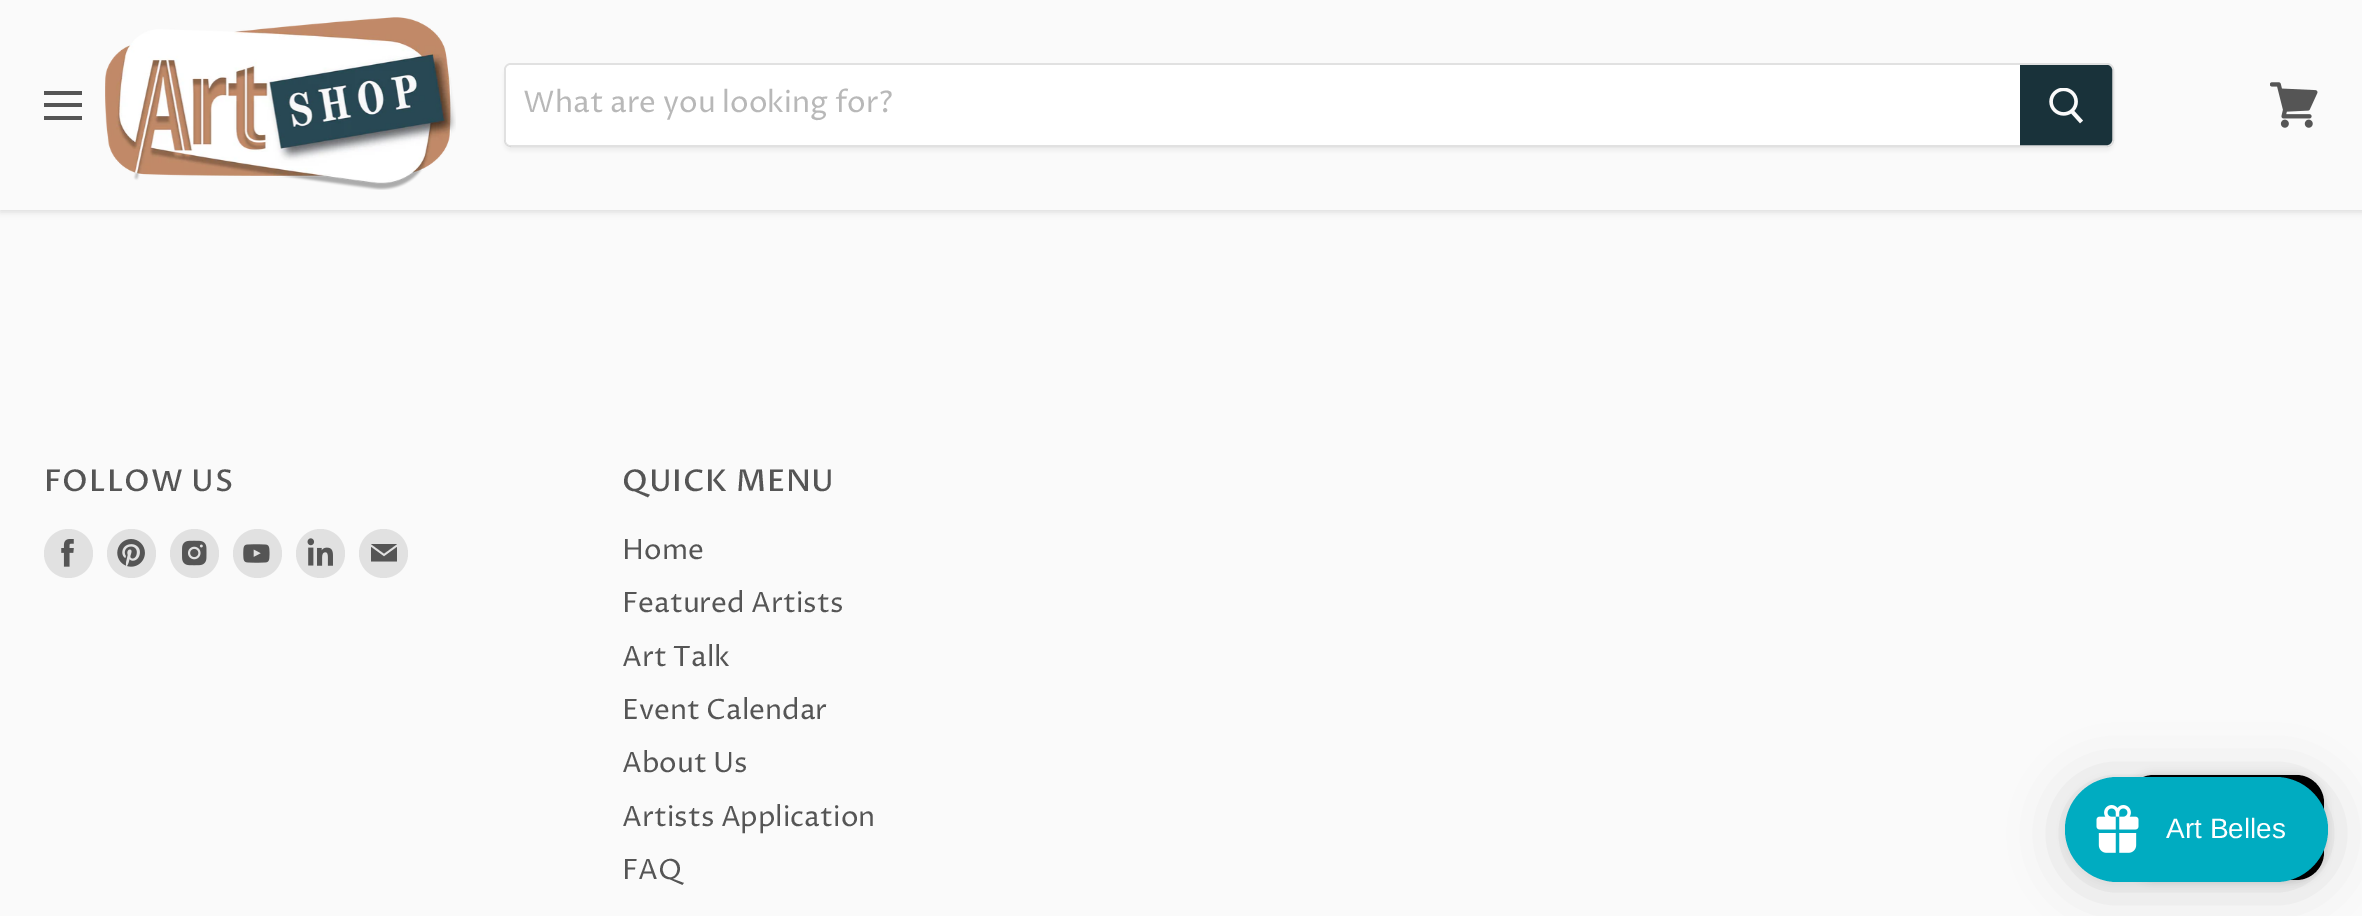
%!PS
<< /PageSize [2362 916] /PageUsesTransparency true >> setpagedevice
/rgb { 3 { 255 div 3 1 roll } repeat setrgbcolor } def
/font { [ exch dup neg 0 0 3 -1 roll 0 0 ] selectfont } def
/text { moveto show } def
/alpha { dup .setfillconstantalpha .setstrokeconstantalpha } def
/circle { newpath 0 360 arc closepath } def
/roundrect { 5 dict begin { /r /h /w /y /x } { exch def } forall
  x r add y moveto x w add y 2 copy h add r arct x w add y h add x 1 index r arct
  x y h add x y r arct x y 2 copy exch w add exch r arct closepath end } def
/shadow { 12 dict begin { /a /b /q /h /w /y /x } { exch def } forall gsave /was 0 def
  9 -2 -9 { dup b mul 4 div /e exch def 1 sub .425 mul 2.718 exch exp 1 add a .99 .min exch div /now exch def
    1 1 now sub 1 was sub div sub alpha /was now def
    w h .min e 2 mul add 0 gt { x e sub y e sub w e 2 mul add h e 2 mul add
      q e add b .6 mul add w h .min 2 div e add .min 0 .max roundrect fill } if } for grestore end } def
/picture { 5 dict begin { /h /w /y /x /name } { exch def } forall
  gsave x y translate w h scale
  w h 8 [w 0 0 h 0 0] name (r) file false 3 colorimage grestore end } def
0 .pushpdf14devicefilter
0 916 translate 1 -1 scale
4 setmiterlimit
250 250 250 rgb
0 0 2362 916 rectfill
125 125 125 rgb
0 2 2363 210 0 3.5 0.25 shadow
250 250 250 rgb
0 0 2362 210 rectfill
85 85 85 rgb
44 91 38 4 rectfill
44 103 38 4 rectfill
44 116 38 4 rectfill
(img_01.rgb) 105 17 351 173 picture
gsave
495 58 moveto 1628 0 rlineto 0 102 rlineto -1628 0 rlineto closepath 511 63 moveto 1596 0 rlineto 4 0 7 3 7 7 rcurveto 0 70 rlineto 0 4 -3 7 -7 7 rcurveto -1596 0 rlineto -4 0 -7 -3 -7 -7 rcurveto 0 -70 rlineto 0 -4 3 -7 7 -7 rcurveto closepath eoclip newpath
125 125 125 rgb
504 67 1610 84 7 2.5 0.11 shadow
grestore
0.2 alpha
125 125 125 rgb
2 setlinewidth
505 64 1608 82 6 roundrect stroke
1 alpha
255 255 255 rgb
511 65 moveto 1509 0 rlineto 0 80 rlineto -1509 0 rlineto -3 0 -5 -2 -5 -5 rcurveto 0 -70 rlineto 0 -3 2 -5 5 -5 rcurveto closepath fill
25 50 58 rgb
2021 66 moveto 86 0 rlineto 2 0 4 2 4 4 rcurveto 0 70 rlineto 0 2 -2 4 -4 4 rcurveto -86 0 rlineto closepath gsave fill grestore
stroke
(img_02.rgb) 2049 88 34 36 picture
(img_03.rgb) 2270 82 48 46 picture
225 225 225 rgb
68.5 553.5 24.5 circle fill
(img_04.rgb) 61 539 13 28 picture
131.5 553.5 24.5 circle fill
(img_05.rgb) 117 539 28 28 picture
194.5 553.5 24.5 circle fill
(img_06.rgb) 182 540 25 26 picture
257.5 553.5 24.5 circle fill
(img_07.rgb) 243 544 27 19 picture
320.5 553.5 24.5 circle fill
(img_08.rgb) 307 538 26 28 picture
383.5 553.5 24.5 circle fill
85 85 85 rgb
397 544 moveto -26 0 rlineto 13 9.5 rlineto closepath 384 556.5 moveto -13 -9.5 rlineto 0 14.5 rlineto 26 0 rlineto 0 -14.5 rlineto closepath eofill
0 0 0 rgb
2126 775 198 105 28 4.5 0.15 shadow
2126 775 198 105 28 roundrect fill
2065 781 263 105 52.5 26 0.15 shadow
2065 779 263 105 52.5 5 0.05 shadow
0 172 193 rgb
2065 777 263 105 52.5 roundrect fill
(img_09.rgb) 2096 805 43 48 picture
/ProzaLibre-Regular 29.75 font
184 184 184 rgb
(What are you looking for?) 523 112 text
/ProzaLibre-Medium 30 font
85 85 85 rgb
44 491 moveto 1 0 (FOLLOW US) ashow
622 491 moveto 1 0 (QUICK MENU) ashow
/ProzaLibre-Regular 28 font
(Home) 622 559 text
(Featured Artists) 622 612 text
(Art Talk) 622 666 text
(Event Calendar) 622 719 text
(About Us) 622 772 text
(Artists Application) 622 826 text
(FAQ) 622 879 text
/LiberationSans-Regular 28 font
255 255 255 rgb
(Art Belles) 2166 838 text
.poppdf14devicefilter showpage
